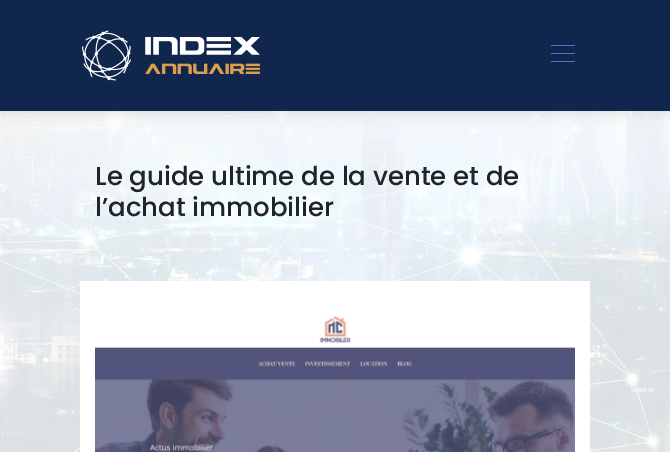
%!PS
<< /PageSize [670 452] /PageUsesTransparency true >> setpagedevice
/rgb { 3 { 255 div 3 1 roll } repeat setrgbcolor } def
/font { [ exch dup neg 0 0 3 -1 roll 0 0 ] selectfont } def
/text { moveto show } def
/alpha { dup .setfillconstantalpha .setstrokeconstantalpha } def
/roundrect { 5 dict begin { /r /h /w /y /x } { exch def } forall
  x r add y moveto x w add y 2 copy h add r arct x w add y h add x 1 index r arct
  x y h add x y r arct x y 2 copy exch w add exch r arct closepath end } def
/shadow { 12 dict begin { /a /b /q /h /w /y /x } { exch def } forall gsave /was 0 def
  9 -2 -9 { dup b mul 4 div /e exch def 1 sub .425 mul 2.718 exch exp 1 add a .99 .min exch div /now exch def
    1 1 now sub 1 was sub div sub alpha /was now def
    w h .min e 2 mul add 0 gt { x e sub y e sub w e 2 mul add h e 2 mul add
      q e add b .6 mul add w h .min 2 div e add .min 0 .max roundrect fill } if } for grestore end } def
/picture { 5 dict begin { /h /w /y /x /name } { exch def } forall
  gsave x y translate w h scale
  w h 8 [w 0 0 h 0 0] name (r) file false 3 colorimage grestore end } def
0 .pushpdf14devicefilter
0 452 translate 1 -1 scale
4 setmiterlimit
255 255 255 rgb
0 0 670 452 rectfill
(img_01.rgb) 0 111 670 341 picture
0 0 0 rgb
0 2 670 111 0 6.5 0.1 shadow
16 38 77 rgb
0 0 670 111 rectfill
(img_02.rgb) 82 30 178 51 picture
70 117 199 rgb
551 45 24 1 rectfill
551 53 24 1 rectfill
551 61 24 1 rectfill
255 255 255 rgb
80 281 510 171 rectfill
(img_03.rgb) 95 316 480 136 picture
/Poppins-Medium 26 font
33 37 41 rgb
(Le guide ultime de la vente et de) 95 185 text
(l’achat immobilier) 95 216 text
.poppdf14devicefilter showpage
